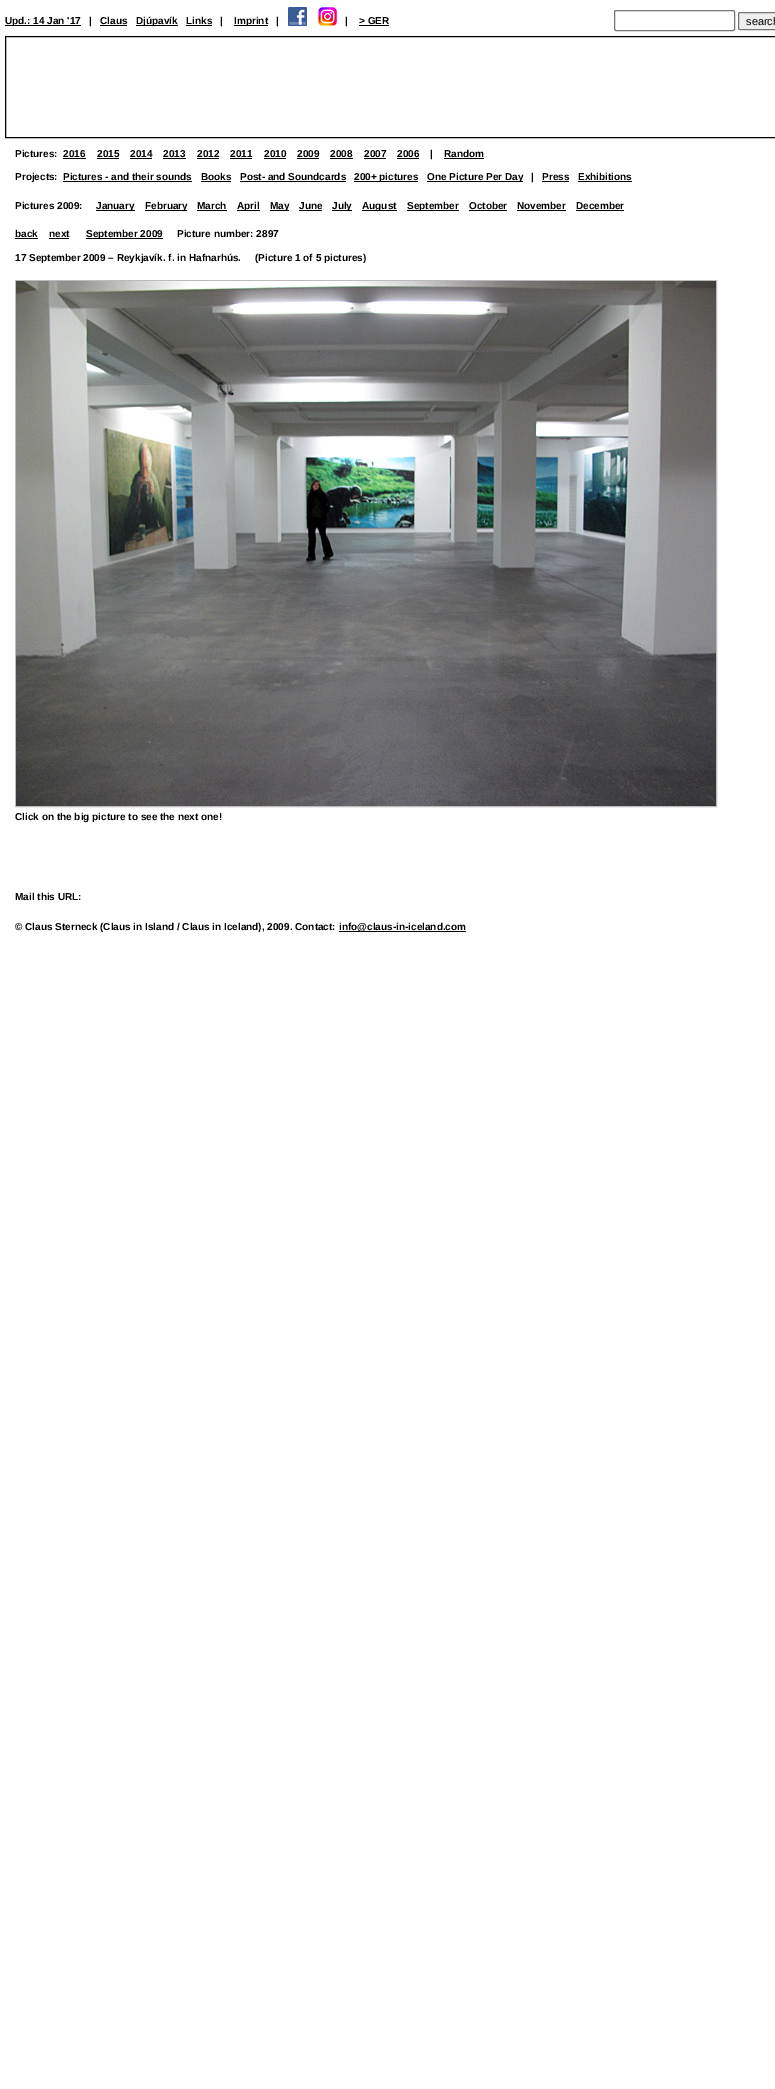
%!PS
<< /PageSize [775 2089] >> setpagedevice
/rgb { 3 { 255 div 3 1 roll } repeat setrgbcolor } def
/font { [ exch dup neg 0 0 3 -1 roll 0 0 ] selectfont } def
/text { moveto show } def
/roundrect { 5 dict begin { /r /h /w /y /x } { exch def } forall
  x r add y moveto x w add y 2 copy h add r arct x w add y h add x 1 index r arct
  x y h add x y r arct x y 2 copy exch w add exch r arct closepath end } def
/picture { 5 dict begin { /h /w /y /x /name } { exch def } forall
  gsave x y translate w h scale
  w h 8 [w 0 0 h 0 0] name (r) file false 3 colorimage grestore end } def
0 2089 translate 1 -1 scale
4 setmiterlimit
255 255 255 rgb
0 0 775 2089 rectfill
0 0 0 rgb
5 25 76 1 rectfill
100 25 27 1 rectfill
136 25 42 1 rectfill
186 25 26 1 rectfill
234 25 34 1 rectfill
(img_01.rgb) 288 7 19 19 picture
(img_02.rgb) 318 7 19 19 picture
359 25 30 1 rectfill
118 118 118 rgb
614.5 10.5 120 20 1.5 roundrect stroke
239 239 239 rgb
738.5 12.5 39 17 1.5 roundrect gsave fill grestore
118 118 118 rgb
stroke
0 0 0 rgb
5.5 36.5 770 101 rectstroke
63 158 23 1 rectfill
97 158 22 1 rectfill
130 158 22 1 rectfill
163 158 23 1 rectfill
197 158 22 1 rectfill
230 158 22 1 rectfill
264 158 22 1 rectfill
297 158 22 1 rectfill
330 158 23 1 rectfill
364 158 22 1 rectfill
397 158 22 1 rectfill
444 158 40 1 rectfill
63 181 129 1 rectfill
201 181 30 1 rectfill
240 181 106 1 rectfill
354 181 64 1 rectfill
427 181 96 1 rectfill
542 181 27 1 rectfill
578 181 54 1 rectfill
96 210 39 1 rectfill
145 210 42 1 rectfill
197 210 30 1 rectfill
237 210 23 1 rectfill
270 210 19 1 rectfill
299 210 23 1 rectfill
332 210 20 1 rectfill
362 210 35 1 rectfill
407 210 52 1 rectfill
469 210 38 1 rectfill
517 210 49 1 rectfill
576 210 48 1 rectfill
15 238 23 1 rectfill
49 238 20 1 rectfill
86 238 77 1 rectfill
187 187 187 rgb
15.5 280.5 701 526 rectstroke
(img_03.rgb) 16 281 700 525 picture
0 0 0 rgb
339 931 127 1 rectfill
/LiberationSans-Bold 10 font
(Upd.: 14 Jan '17) 5 24 text
(|) 89 24 text
(Claus) 100 24 text
(Djúpavík) 136 24 text
(Links) 186 24 text
(|) 220 24 text
(Imprint) 234 24 text
(|) 276 24 text
(|) 345 24 text
(> GER) 359 24 text
/LiberationSans-Regular 11 font
(search) 746 25 text
/LiberationSans-Bold 10 font
(Pictures:) 15 157 text
(2016) 63 157 text
(2015) 97 157 text
(2014) 130 157 text
(2013) 163 157 text
(2012) 197 157 text
(2011) 230 157 text
(2010) 264 157 text
(2009) 297 157 text
(2008) 330 157 text
(2007) 364 157 text
(2006) 397 157 text
(|) 430 157 text
(Random) 444 157 text
(Projects:) 15 180 text
(Pictures - and their sounds) 63 180 text
(Books) 201 180 text
(Post- and Soundcards) 240 180 text
(200+ pictures) 354 180 text
(One Picture Per Day) 427 180 text
(|) 531 180 text
(Press) 542 180 text
(Exhibitions) 578 180 text
(Pictures 2009:) 15 209 text
(January) 96 209 text
(February) 145 209 text
(March) 197 209 text
(April) 237 209 text
(May) 270 209 text
(June) 299 209 text
(July) 332 209 text
(August) 362 209 text
(September) 407 209 text
(October) 469 209 text
(November) 517 209 text
(December) 576 209 text
(back) 15 237 text
(next) 49 237 text
(September 2009) 86 237 text
(Picture number: 2897) 177 237 text
(17 September 2009 – Reykjavík. f. in Hafnarhús.) 15 261 text
(\(Picture 1 of 5 pictures\)) 255 261 text
(Click on the big picture to see the next one!) 15 820 text
(Mail this URL:) 15 900 text
(© Claus Sterneck \(Claus in Island / Claus in Iceland\), 2009. Contact:) 15 930 text
(info@claus-in-iceland.com) 339 930 text
showpage
